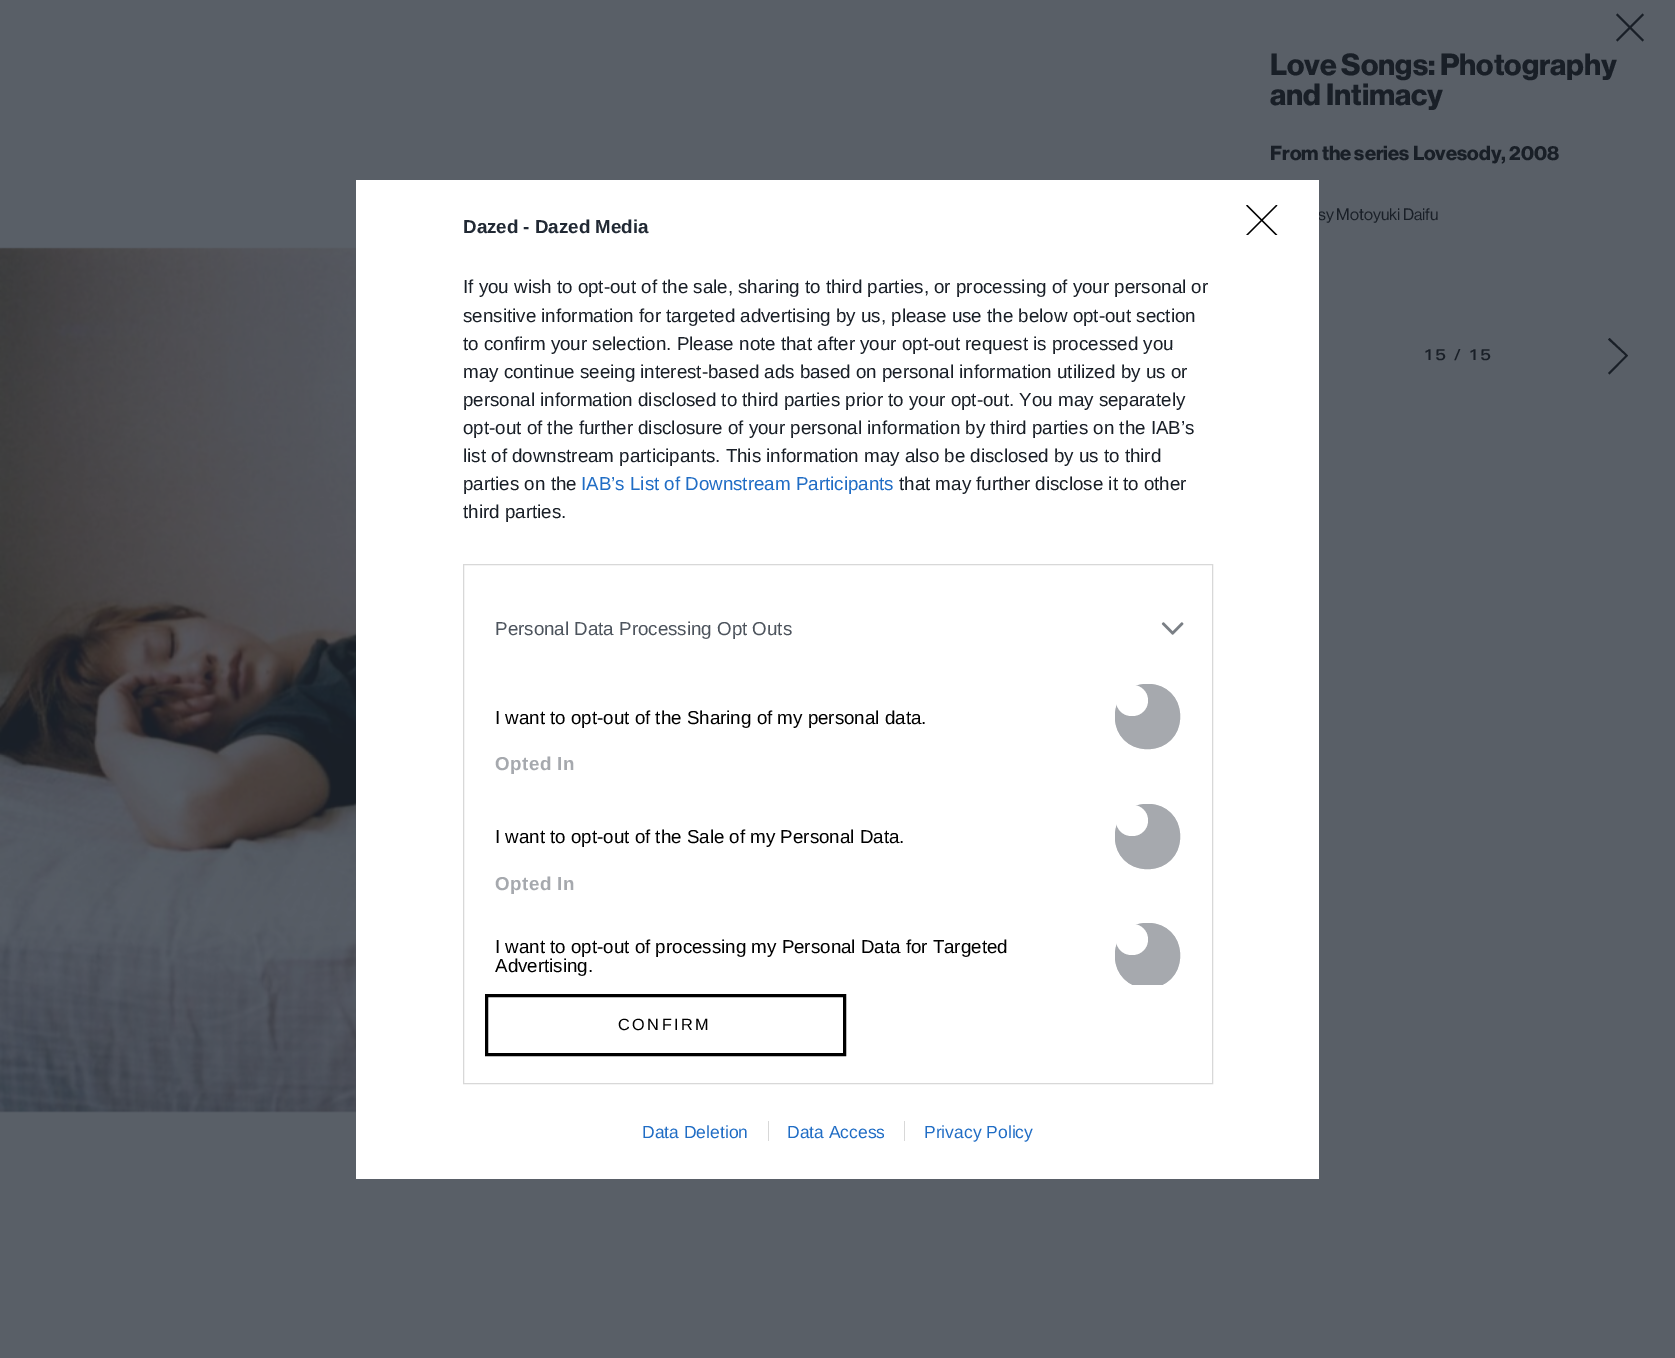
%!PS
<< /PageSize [1675 1358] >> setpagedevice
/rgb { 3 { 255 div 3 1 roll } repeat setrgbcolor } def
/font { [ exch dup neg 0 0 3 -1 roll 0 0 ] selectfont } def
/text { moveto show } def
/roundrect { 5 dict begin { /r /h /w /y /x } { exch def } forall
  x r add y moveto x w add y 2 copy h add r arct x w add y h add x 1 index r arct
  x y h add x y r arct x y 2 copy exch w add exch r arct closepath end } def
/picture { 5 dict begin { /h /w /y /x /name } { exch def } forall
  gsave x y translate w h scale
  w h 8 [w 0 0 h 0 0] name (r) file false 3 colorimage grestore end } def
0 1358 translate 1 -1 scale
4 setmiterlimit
89 95 103 rgb
0 0 1675 1358 rectfill
25 31 39 rgb
1642.5 13.5 moveto 1.5 1.5 rlineto -26.5 26.5 rlineto -1.5 -1.5 rlineto closepath eofill
1644 40 moveto -1.5 1.5 rlineto -26.5 -26.5 rlineto 1.5 -1.5 rlineto closepath eofill
1625.5 355.5 moveto -17.5 -16 rlineto 1.5 -1.5 rlineto 18.5 17.5 rlineto -18.5 19 rlineto -1.5 -1.5 rlineto closepath fill
(img_02.rgb) 0 247 356 866 picture
/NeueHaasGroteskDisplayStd-Bold 30 font
(Love Songs: Photography) 1270 75 text
(and Intimacy) 1270 105 text
/NeueHaasGroteskDisplayStd-Bold 20 font
(From the series Lovesody, 2008) 1270 160 text
/NeueHaasGroteskDisplayStd-Regular 16.25 font
(sy Motoyuki Daifu) 1318 220 text
255 255 255 rgb
356 180 963 999 rectfill
216 216 216 rgb
463.5 564.5 749 519 rectstroke
gsave
476 578 723 407 rectclip
166 169 174 rgb
1115.5 923.5 64 64 30.5 roundrect gsave fill grestore
stroke
grestore
255 255 255 rgb
1116 924 32 31 15.5 roundrect fill
166 169 174 rgb
1115.5 804.5 64 64 30.5 roundrect gsave fill grestore
stroke
255 255 255 rgb
1116 805 32 31 15.5 roundrect fill
166 169 174 rgb
1115.5 684.5 64 64 30.5 roundrect gsave fill grestore
stroke
255 255 255 rgb
1116 685 32 31 15.5 roundrect fill
(img_01.rgb) 1161 622 23 13 picture
gsave
1246 205 32 30 rectclip
0 0 0 rgb
1.3 setlinewidth
1 setlinecap
1 setlinejoin
1247 205.5 moveto 29.5 29.5 rlineto 1276.5 205.5 moveto -29.5 29.5 rlineto stroke
grestore
0 0 0 rgb
3 setlinewidth
486.5 995.5 358 59 rectstroke
/LiberationSans-Regular 16.25 font
618 1030 moveto 2.5 0 (CONFIRM) ashow
/LiberationSans-Regular 18.75 font
(Advertising.) 495 972 text
(I want to opt-out of processing my Personal Data for Targeted) 495 953 text
/LiberationSans-Bold 18.75 font
166 169 174 rgb
495 890 moveto 0.5 0 (Opted In) ashow
/LiberationSans-Regular 18.75 font
0 0 0 rgb
(I want to opt-out of the Sale of my Personal Data.) 495 843 text
/LiberationSans-Bold 18.75 font
166 169 174 rgb
495 770 moveto 0.5 0 (Opted In) ashow
/LiberationSans-Regular 18.75 font
0 0 0 rgb
(I want to opt-out of the Sharing of my personal data.) 495 724 text
77 84 93 rgb
(Personal Data Processing Opt Outs) 495 635 text
25 31 39 rgb
(third parties.) 463 518 text
(that may further disclose it to other) 899 490 text
32 109 197 rgb
(IAB’s List of Downstream Participants) 581 490 text
25 31 39 rgb
(parties on the) 463 490 text
(list of downstream participants. This information may also be disclosed by us to third) 463 462 text
(opt-out of the further disclosure of your personal information by third parties on the IAB’s) 463 434 text
(personal information disclosed to third parties prior to your opt-out. You may separately) 463 406 text
(may continue seeing interest-based ads based on personal information utilized by us or) 463 378 text
(to confirm your selection. Please note that after your opt-out request is processed you) 463 350 text
(sensitive information for targeted advertising by us, please use the below opt-out section) 463 322 text
(If you wish to opt-out of the sale, sharing to third parties, or processing of your personal or) 463 293 text
/LiberationSans-Regular 17.5 font
32 109 197 rgb
(Privacy Policy) 924 1138 text
216 216 216 rgb
904 1121 1 20 rectfill
32 109 197 rgb
(Data Access) 787 1138 text
216 216 216 rgb
768 1121 1 20 rectfill
32 109 197 rgb
(Data Deletion) 642 1138 text
/LiberationSans-Bold 18.75 font
33 41 52 rgb
(Dazed - Dazed Media) 463 233 text
/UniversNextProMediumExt-Regular 15 font
25 31 39 rgb
1423 360 moveto 1 0 (15 / 15) ashow
showpage
